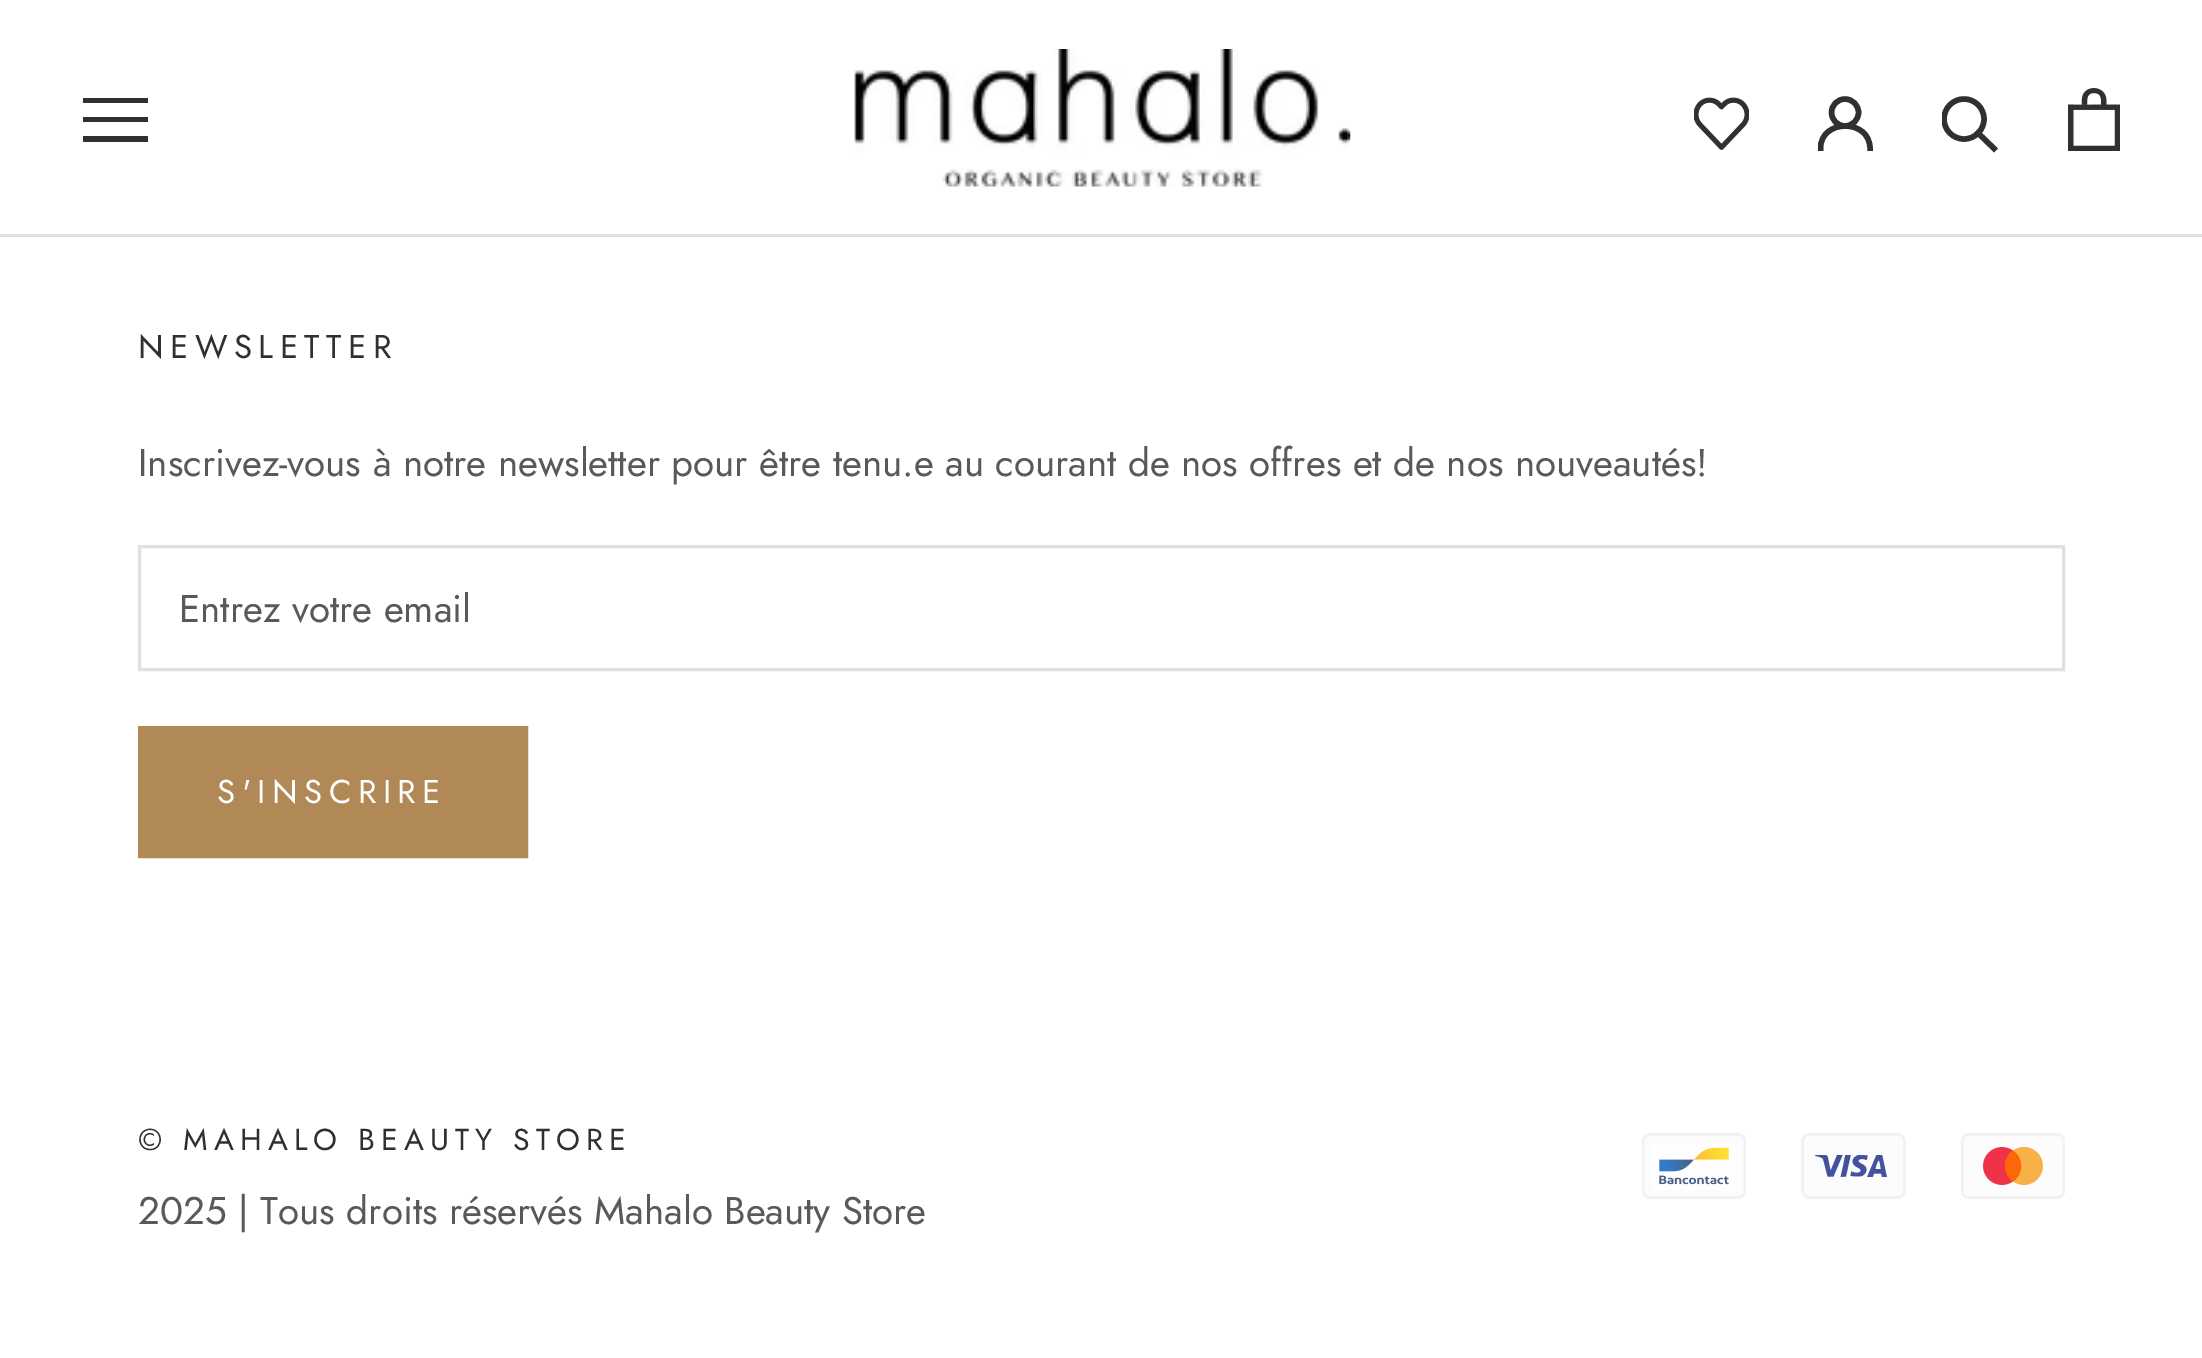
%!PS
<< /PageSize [2202 1358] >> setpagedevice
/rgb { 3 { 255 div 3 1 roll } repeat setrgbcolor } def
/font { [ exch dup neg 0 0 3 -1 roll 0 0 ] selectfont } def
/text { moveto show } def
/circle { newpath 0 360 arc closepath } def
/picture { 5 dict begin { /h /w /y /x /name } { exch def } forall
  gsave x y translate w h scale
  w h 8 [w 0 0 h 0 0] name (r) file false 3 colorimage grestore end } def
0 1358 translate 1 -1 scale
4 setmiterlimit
255 255 255 rgb
0 0 2202 1358 rectfill
224 224 224 rgb
0 234 2202 3 rectfill
gsave
83 96 66 47 rectclip
48 48 48 rgb
82 142 moveto 0 -6 rlineto 66 0 rlineto 0 6 rlineto closepath 82 117 moveto 66 0 rlineto 0 5 rlineto -66 0 rlineto closepath 82 98 moveto 66 0 rlineto 0 5 rlineto -66 0 rlineto closepath fill
grestore
(img_01.rgb) 854 49 497 138 picture
(img_02.rgb) 1694 97 55 53 picture
gsave
1818 96 55 55 rectclip
48 48 48 rgb
5.5 setlinewidth
2 setlinecap
1820.5 148.5 moveto 0 -30 49.5 -30 49.5 0 rcurveto stroke
grestore
48 48 48 rgb
5.5 setlinewidth
1845 112.5 13.5 circle stroke
2 setlinecap
1994 148.5 moveto -16 -15.5 rlineto stroke
gsave
1942 96 57 58 rectclip
0 setlinecap
1964 119 20 circle stroke
grestore
(img_03.rgb) 2068 88 52 63 picture
224 224 224 rgb
3 setlinewidth
0 setlinecap
139.5 546.5 1924 123 rectstroke
176 137 87 rgb
139.5 727.5 387 129 rectstroke
141 729 384 126 rectfill
(img_04.rgb) 1642 1133 104 66 picture
(img_05.rgb) 1801 1133 105 66 picture
(img_06.rgb) 1961 1133 104 66 picture
/Jost-Regular 33 font
48 48 48 rgb
138 358 moveto 6.5 0 (NEWSLETTER) ashow
/Jost-Regular 38.5 font
89 89 89 rgb
(Inscrivez-vous à notre newsletter pour être tenu.e au courant de nos offres et de nos nouveautés!) 138 476 text
(Entrez votre email) 179 622 text
/Jost-Regular 33 font
255 255 255 rgb
217 803 moveto 6.5 0 (S'INSCRIRE) ashow
/Jost-Regular 30.25 font
48 48 48 rgb
138 1150 moveto 6.05 0 (© MAHALO BEAUTY STORE) ashow
/Jost-Regular 38.5 font
89 89 89 rgb
(2025 | Tous droits réservés Mahalo Beauty Store) 138 1224 text
showpage
